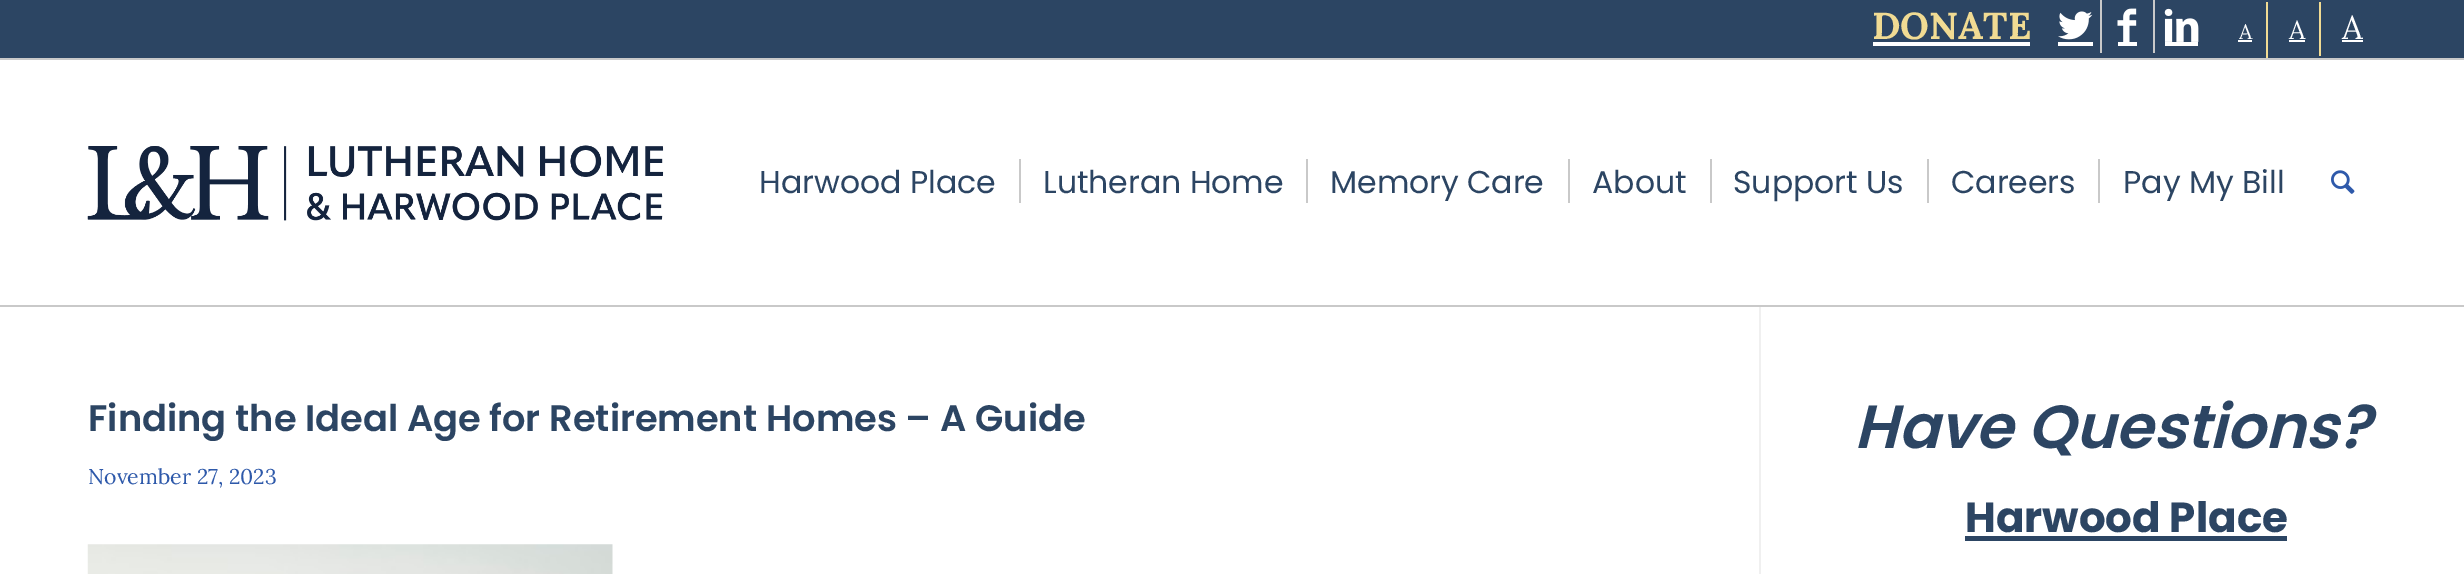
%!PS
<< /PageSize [2464 574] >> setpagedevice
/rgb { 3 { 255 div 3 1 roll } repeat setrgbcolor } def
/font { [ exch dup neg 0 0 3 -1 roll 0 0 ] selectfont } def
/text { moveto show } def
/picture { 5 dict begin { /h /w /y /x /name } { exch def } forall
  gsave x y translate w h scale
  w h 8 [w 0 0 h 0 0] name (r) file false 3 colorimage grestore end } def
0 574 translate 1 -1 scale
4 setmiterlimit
255 255 255 rgb
0 0 2464 574 rectfill
44 69 99 rgb
0 0 2464 58 rectfill
201 201 201 rgb
0 58 2464 2 rectfill
255 255 255 rgb
1873 42 157 4 rectfill
201 201 201 rgb
2100 0 2 53 rectfill
(img_01.rgb) 2058 11 35 29 picture
255 255 255 rgb
2058 42 35 4 rectfill
201 201 201 rgb
2153 0 2 53 rectfill
(img_02.rgb) 2117 8 20 34 picture
255 255 255 rgb
2118 42 19 4 rectfill
(img_03.rgb) 2164 8 35 34 picture
2165 42 33 4 rectfill
241 219 147 rgb
2266 2 2 56 rectfill
255 255 255 rgb
2238 40 14 2 rectfill
241 219 147 rgb
2319 2 2 54 rectfill
255 255 255 rgb
2289 40 16 2 rectfill
2342 40 21 2 rectfill
240 240 240 rgb
1759 306 2 268 rectfill
201 201 201 rgb
0 305 2464 2 rectfill
(img_04.rgb) 87 145 577 76 picture
1019 159 2 44 rectfill
1306 159 2 44 rectfill
1568 159 2 44 rectfill
1710 159 2 44 rectfill
1927 159 2 44 rectfill
2098 159 2 44 rectfill
(img_05.rgb) 2331 170 24 24 picture
(img_06.rgb) 87 544 526 30 picture
44 69 99 rgb
1965 536 322 5 rectfill
/Lora-Bold 37.5 font
241 219 147 rgb
(DONATE) 1872 39 text
/Lora-Regular 21 font
255 255 255 rgb
(A) 2239 39 text
/Lora-Regular 26 font
(A) 2289 39 text
/Lora-Regular 33 font
(A) 2342 39 text
/Poppins-Regular 31.5 font
44 69 99 rgb
(Harwood Place) 759 193 text
(Lutheran Home) 1043 193 text
(Memory Care) 1330 193 text
(About) 1592 193 text
(Support Us) 1733 193 text
(Careers) 1951 193 text
(Pay My Bill) 2123 193 text
/Poppins-SemiBold 36.75 font
(Finding the Ideal Age for Retirement Homes – A Guide) 88 431 text
/Lora-Regular 21.25 font
46 89 170 rgb
(November 27, 2023) 88 484 text
/Poppins-SemiBoldItalic 60.75 font
44 69 99 rgb
(Have Questions?) 1854 448 text
/Poppins-Bold 42 font
(Harwood Place) 1965 532 text
showpage
